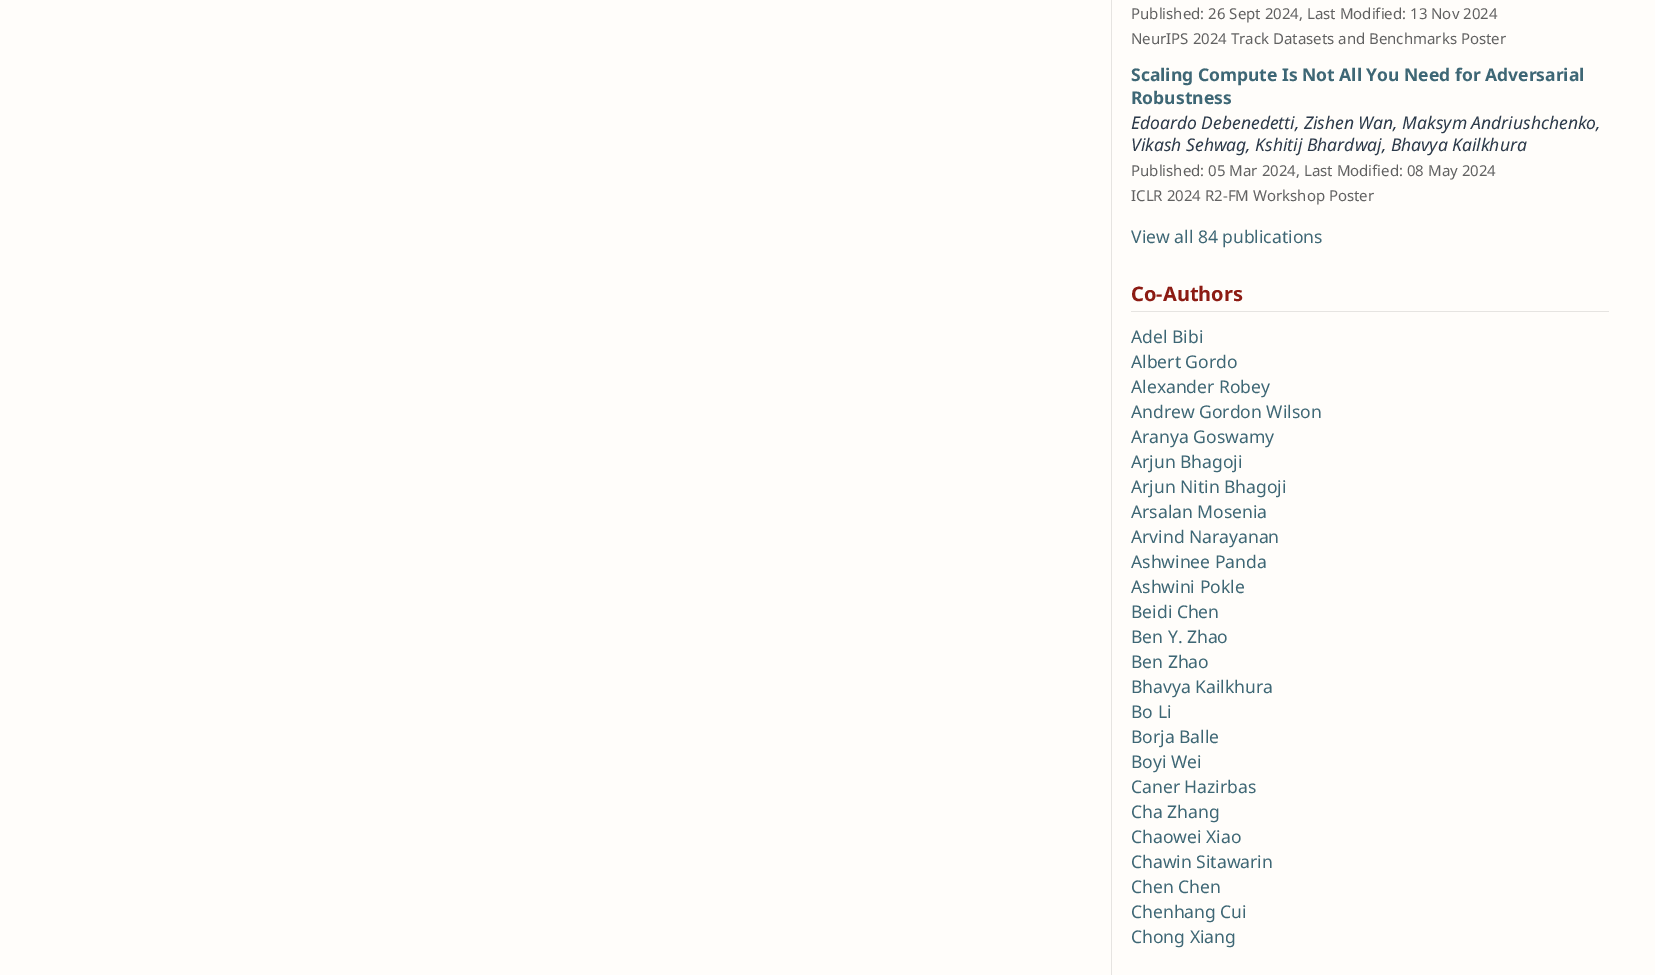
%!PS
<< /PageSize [1673 975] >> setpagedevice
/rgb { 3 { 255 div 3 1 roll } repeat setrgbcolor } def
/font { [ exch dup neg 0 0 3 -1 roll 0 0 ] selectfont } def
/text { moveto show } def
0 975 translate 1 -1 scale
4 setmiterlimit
255 255 255 rgb
0 0 1673 975 rectfill
255 253 250 rgb
0 0 1655 975 rectfill
230 228 225 rgb
1111 0 1 975 rectfill
1131 311 478 1 rectfill
/NotoSans-Regular 15 font
97 97 97 rgb
(Published: 26 Sept 2024, Last Modified: 13 Nov 2024) 1131 19 text
(NeurIPS 2024 Track Datasets and Benchmarks Poster) 1131 44 text
/NotoSans-Bold 17.5 font
62 103 117 rgb
(Scaling Compute Is Not All You Need for Adversarial) 1131 81 text
(Robustness) 1131 104 text
/NotoSans-Italic 17.5 font
44 58 74 rgb
(Edoardo Debenedetti, Zishen Wan, Maksym Andriushchenko,) 1131 129 text
(Vikash Sehwag, Kshitij Bhardwaj, Bhavya Kailkhura) 1131 151 text
/NotoSans-Regular 15 font
97 97 97 rgb
(Published: 05 Mar 2024, Last Modified: 08 May 2024) 1131 176 text
(ICLR 2024 R2-FM Workshop Poster) 1131 201 text
/NotoSans-Regular 17.5 font
62 103 117 rgb
(View all 84 publications) 1131 243 text
/NotoSans-Bold 20 font
140 27 19 rgb
(Co-Authors) 1131 301 text
/NotoSans-Regular 17.5 font
62 103 117 rgb
(Adel Bibi) 1131 343 text
(Albert Gordo) 1131 368 text
(Alexander Robey) 1131 393 text
(Andrew Gordon Wilson) 1131 418 text
(Aranya Goswamy) 1131 443 text
(Arjun Bhagoji) 1131 468 text
(Arjun Nitin Bhagoji) 1131 493 text
(Arsalan Mosenia) 1131 518 text
(Arvind Narayanan) 1131 543 text
(Ashwinee Panda) 1131 568 text
(Ashwini Pokle) 1131 593 text
(Beidi Chen) 1131 618 text
(Ben Y. Zhao) 1131 643 text
(Ben Zhao) 1131 668 text
(Bhavya Kailkhura) 1131 693 text
(Bo Li) 1131 718 text
(Borja Balle) 1131 743 text
(Boyi Wei) 1131 768 text
(Caner Hazirbas) 1131 793 text
(Cha Zhang) 1131 818 text
(Chaowei Xiao) 1131 843 text
(Chawin Sitawarin) 1131 868 text
(Chen Chen) 1131 893 text
(Chenhang Cui) 1131 918 text
(Chong Xiang) 1131 943 text
showpage
